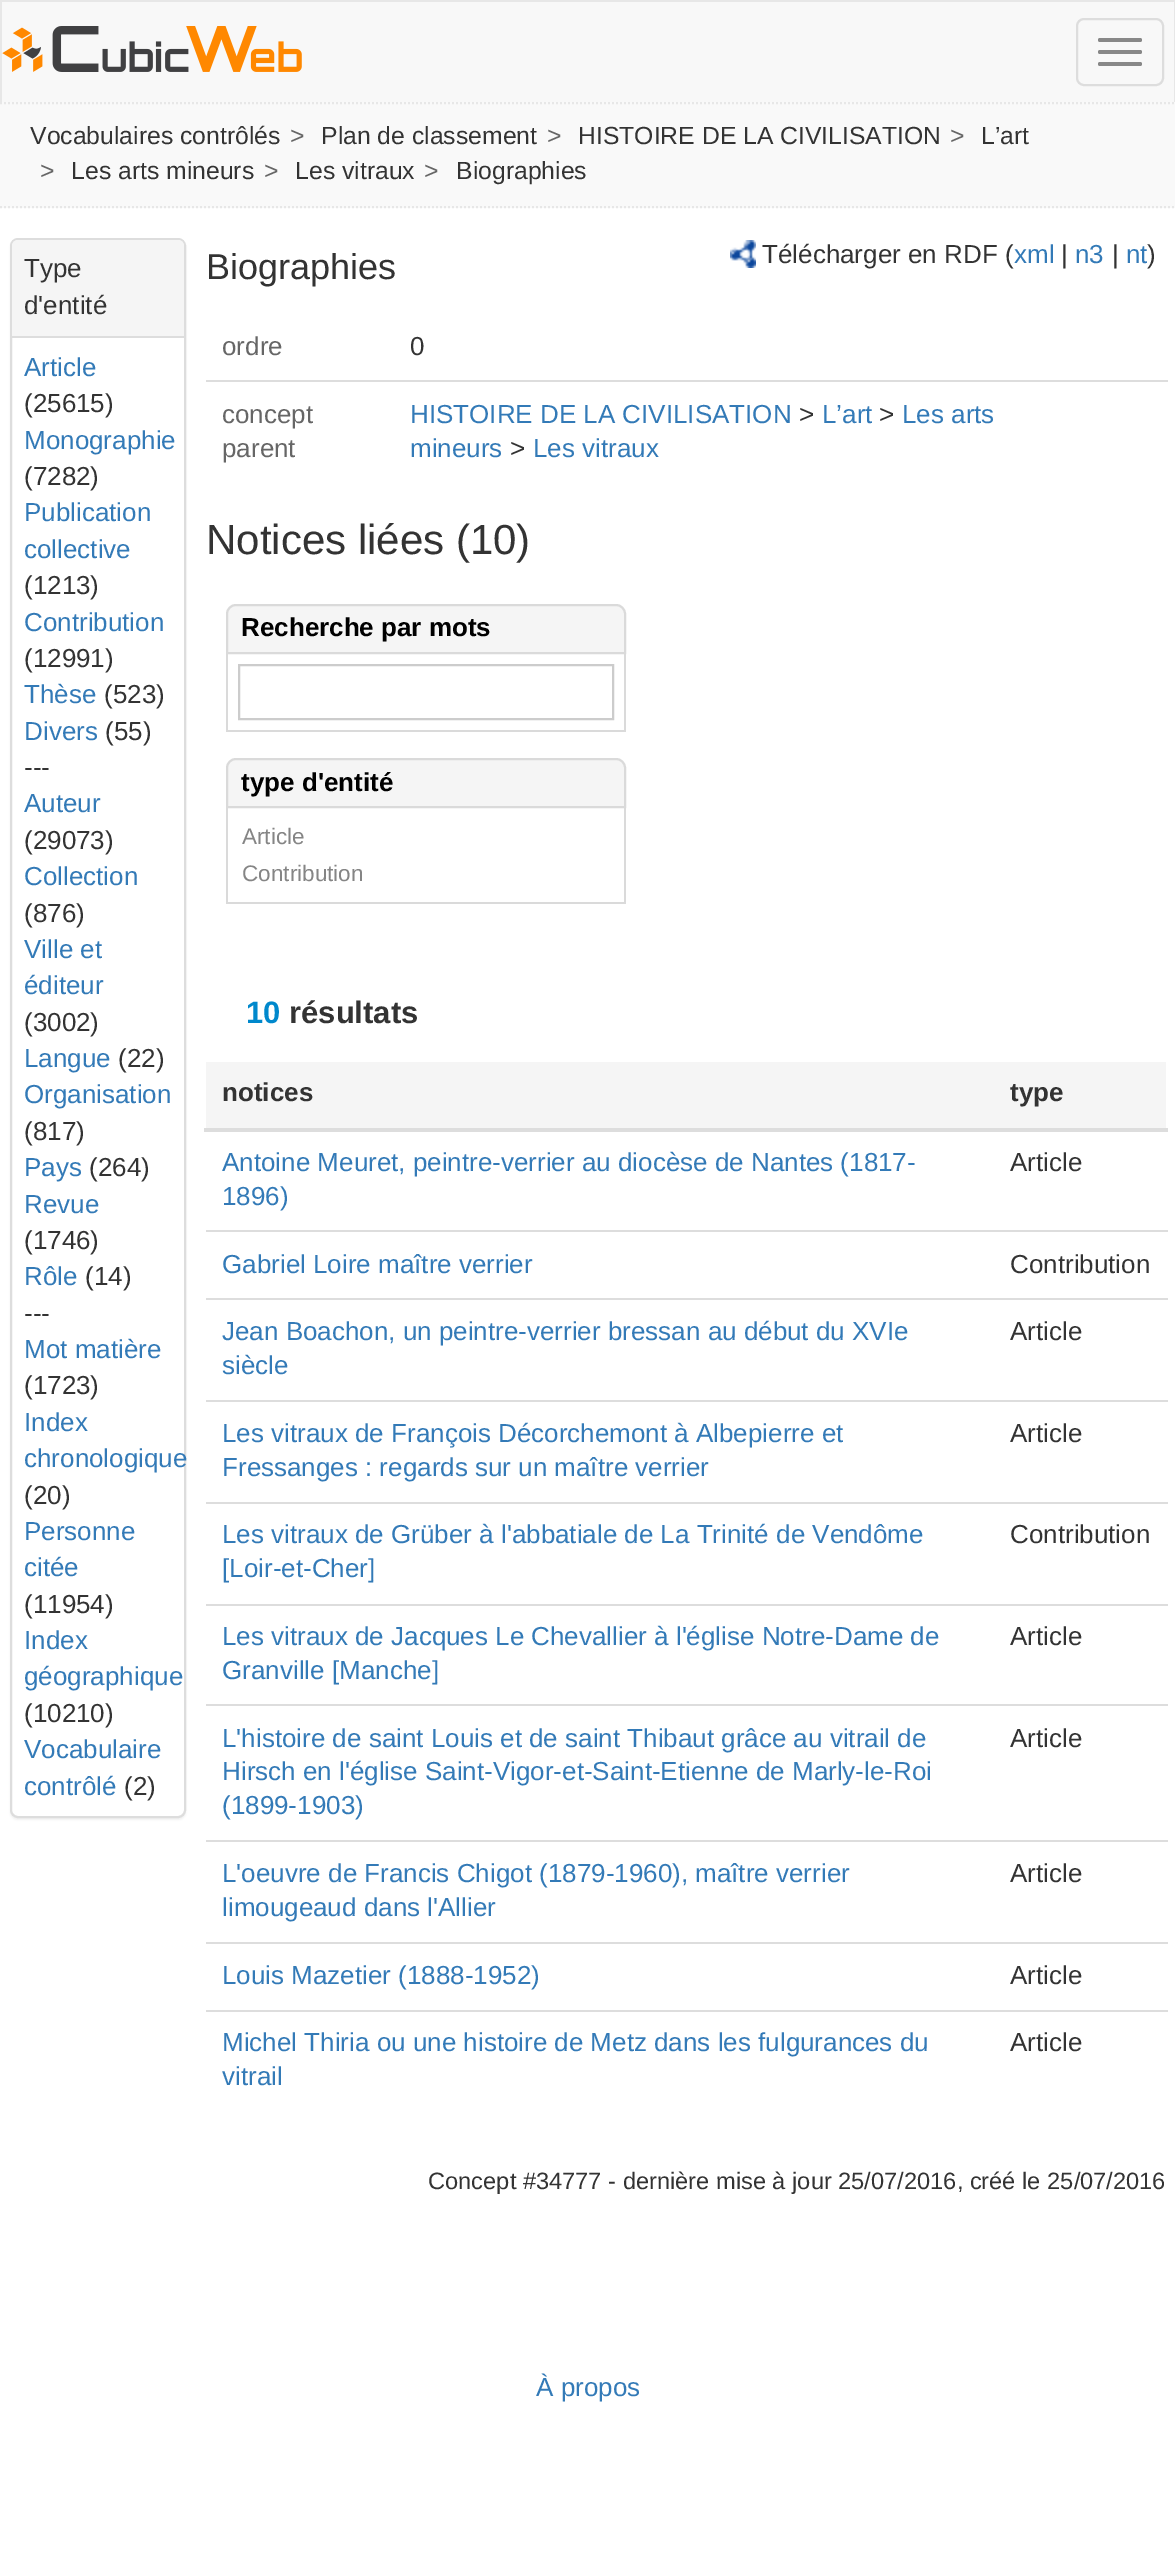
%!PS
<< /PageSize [1175 2572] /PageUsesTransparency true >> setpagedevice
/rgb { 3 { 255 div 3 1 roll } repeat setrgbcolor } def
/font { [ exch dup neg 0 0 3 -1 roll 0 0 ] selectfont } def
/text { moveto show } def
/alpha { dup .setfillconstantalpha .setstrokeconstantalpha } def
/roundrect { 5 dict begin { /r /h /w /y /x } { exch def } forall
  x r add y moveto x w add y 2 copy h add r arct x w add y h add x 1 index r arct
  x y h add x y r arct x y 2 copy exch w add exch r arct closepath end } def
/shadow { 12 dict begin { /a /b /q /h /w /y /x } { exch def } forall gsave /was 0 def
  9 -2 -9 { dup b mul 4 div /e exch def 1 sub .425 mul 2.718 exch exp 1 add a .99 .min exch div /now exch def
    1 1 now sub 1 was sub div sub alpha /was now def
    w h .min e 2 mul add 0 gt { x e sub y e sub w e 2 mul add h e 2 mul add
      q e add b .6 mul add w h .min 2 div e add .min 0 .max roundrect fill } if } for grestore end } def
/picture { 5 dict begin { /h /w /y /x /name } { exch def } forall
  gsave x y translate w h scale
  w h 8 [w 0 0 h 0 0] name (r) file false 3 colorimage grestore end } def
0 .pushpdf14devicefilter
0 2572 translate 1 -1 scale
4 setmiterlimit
255 255 255 rgb
0 0 1175 2572 rectfill
248 248 248 rgb
2 2 1172 100 rectfill
231 231 231 rgb
0 0 1175 2 rectfill
1174 0 1 102 rectfill
0 0 2 102 rectfill
(img_01.rgb) 2 26 300 46 picture
221 221 221 rgb
2 setlinewidth
1077 19 86 66 7 roundrect stroke
136 136 136 rgb
1098 38 44 4 2 roundrect fill
1098 50 44 4 2 roundrect fill
1098 62 44 4 2 roundrect fill
249 249 249 rgb
0 102 1175 106 rectfill
231 231 231 rgb
[2 2] 0 setdash
0 103 moveto 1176 0 rlineto stroke
0 207 moveto 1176 0 rlineto stroke
0 0 0 rgb
10 240 176 1580 8 1 0.05 shadow
255 255 255 rgb
11 239 174 1578 7 roundrect gsave fill grestore
221 221 221 rgb
[] 0 setdash
stroke
245 245 245 rgb
18 240 moveto 160 0 rlineto 3.5 0 6 2.5 6 6 rcurveto 0 92 rlineto -172 0 rlineto 0 -92 rlineto 0 -3.5 2.5 -6 6 -6 rcurveto closepath fill
221 221 221 rgb
12 336 172 2 rectfill
(img_02.rgb) 730 240 26 28 picture
206 380 962 2 rectfill
245 245 245 rgb
236 605 moveto 380 0 rlineto 5 0 9 4 9 9 rcurveto 0 39 rlineto -398 0 rlineto 0 -39 rlineto 0 -5 4 -9 9 -9 rcurveto closepath gsave fill grestore
218 218 218 rgb
stroke
624 654 2 78 rectfill
226 730 400 2 rectfill
226 654 2 78 rectfill
204 204 204 rgb
239 665 374 54 rectstroke
245 245 245 rgb
236 759 moveto 380 0 rlineto 5 0 9 4 9 9 rcurveto 0 39 rlineto -398 0 rlineto 0 -39 rlineto 0 -5 4 -9 9 -9 rcurveto closepath gsave fill grestore
218 218 218 rgb
stroke
624 808 2 96 rectfill
226 902 400 2 rectfill
226 808 2 96 rectfill
245 245 245 rgb
206 1062 960 66 rectfill
221 221 221 rgb
204 1128 964 4 rectfill
206 1230 962 2 rectfill
206 1298 962 2 rectfill
206 1400 962 2 rectfill
206 1502 962 2 rectfill
206 1604 962 2 rectfill
206 1704 962 2 rectfill
206 1840 962 2 rectfill
206 1942 962 2 rectfill
206 2010 962 2 rectfill
/LiberationSans-Regular 24.75 font
51 51 51 rgb
(Vocabulaires contrôlés) 30 144 text
102 102 102 rgb
(>) 290 144 text
51 51 51 rgb
(Plan de classement) 321 144 text
102 102 102 rgb
(>) 547 144 text
51 51 51 rgb
(HISTOIRE DE LA CIVILISATION) 578 144 text
102 102 102 rgb
(>) 950 144 text
51 51 51 rgb
(L’art) 981 144 text
102 102 102 rgb
(>) 40 179 text
51 51 51 rgb
(Les arts mineurs) 71 179 text
102 102 102 rgb
(>) 264 179 text
51 51 51 rgb
(Les vitraux) 295 179 text
102 102 102 rgb
(>) 424 179 text
51 51 51 rgb
(Biographies) 456 179 text
/LiberationSans-Regular 26 font
(Type) 24 277 text
(d'entité) 24 314 text
51 122 183 rgb
(Article) 24 376 text
51 51 51 rgb
(\(25615\)) 24 412 text
51 122 183 rgb
(Monographie) 24 449 text
51 51 51 rgb
(\(7282\)) 24 485 text
51 122 183 rgb
(Publication) 24 521 text
(collective) 24 558 text
51 51 51 rgb
(\(1213\)) 24 594 text
51 122 183 rgb
(Contribution) 24 631 text
51 51 51 rgb
(\(12991\)) 24 667 text
51 122 183 rgb
(Thèse) 24 703 text
51 51 51 rgb
(\(523\)) 104 703 text
51 122 183 rgb
(Divers) 24 740 text
51 51 51 rgb
(\(55\)) 105 740 text
(---) 24 776 text
51 122 183 rgb
(Auteur) 24 812 text
51 51 51 rgb
(\(29073\)) 24 849 text
51 122 183 rgb
(Collection) 24 885 text
51 51 51 rgb
(\(876\)) 24 922 text
51 122 183 rgb
(Ville et) 24 958 text
(éditeur) 24 994 text
51 51 51 rgb
(\(3002\)) 24 1031 text
51 122 183 rgb
(Langue) 24 1067 text
51 51 51 rgb
(\(22\)) 118 1067 text
51 122 183 rgb
(Organisation) 24 1103 text
51 51 51 rgb
(\(817\)) 24 1140 text
51 122 183 rgb
(Pays) 24 1176 text
51 51 51 rgb
(\(264\)) 89 1176 text
51 122 183 rgb
(Revue) 24 1213 text
51 51 51 rgb
(\(1746\)) 24 1249 text
51 122 183 rgb
(Rôle) 24 1285 text
51 51 51 rgb
(\(14\)) 85 1285 text
(---) 24 1322 text
51 122 183 rgb
(Mot matière) 24 1358 text
51 51 51 rgb
(\(1723\)) 24 1394 text
51 122 183 rgb
(Index) 24 1431 text
(chronologique) 24 1467 text
51 51 51 rgb
(\(20\)) 24 1504 text
51 122 183 rgb
(Personne) 24 1540 text
(citée) 24 1576 text
51 51 51 rgb
(\(11954\)) 24 1613 text
51 122 183 rgb
(Index) 24 1649 text
(géographique) 24 1685 text
51 51 51 rgb
(\(10210\)) 24 1722 text
51 122 183 rgb
(Vocabulaire) 24 1758 text
(contrôlé) 24 1795 text
51 51 51 rgb
(\(2\)) 124 1795 text
/LiberationSans-Regular 36 font
(Biographies) 206 279 text
/LiberationSans-Regular 26 font
(Télécharger en RDF \() 762 263 text
51 122 183 rgb
(xml) 1014 263 text
51 51 51 rgb
(|) 1061 263 text
51 122 183 rgb
(n3) 1075 263 text
51 51 51 rgb
(|) 1112 263 text
51 122 183 rgb
(nt) 1126 263 text
51 51 51 rgb
(\)) 1147 263 text
102 102 102 rgb
(ordre) 222 355 text
51 51 51 rgb
(0) 410 355 text
102 102 102 rgb
(concept) 222 423 text
(parent) 222 457 text
51 122 183 rgb
(HISTOIRE DE LA CIVILISATION) 410 423 text
51 51 51 rgb
(>) 799 423 text
51 122 183 rgb
(L’art) 822 423 text
51 51 51 rgb
(>) 879 423 text
51 122 183 rgb
(Les arts) 902 423 text
(mineurs) 410 457 text
51 51 51 rgb
(>) 510 457 text
51 122 183 rgb
(Les vitraux) 533 457 text
/LiberationSans-Regular 42 font
51 51 51 rgb
(Notices liées \(10\)) 206 554 text
/LiberationSans-Bold 26 font
0 0 0 rgb
(Recherche par mots) 241 636 text
(type d'entité) 241 791 text
/LiberationSans-Regular 22.5 font
133 133 133 rgb
(Article) 242 844 text
(Contribution) 242 881 text
/LiberationSans-Bold 31 font
0 136 204 rgb
(10) 246 1023 text
51 51 51 rgb
(résultats) 289 1023 text
/LiberationSans-Bold 26 font
(notices) 222 1101 text
(type) 1010 1101 text
/LiberationSans-Regular 26 font
51 122 183 rgb
(Antoine Meuret, peintre-verrier au diocèse de Nantes \(1817-) 222 1171 text
(1896\)) 222 1205 text
51 51 51 rgb
(Article) 1010 1171 text
51 122 183 rgb
(Gabriel Loire maître verrier) 222 1273 text
51 51 51 rgb
(Contribution) 1010 1273 text
51 122 183 rgb
(Jean Boachon, un peintre-verrier bressan au début du XVIe) 222 1340 text
(siècle) 222 1374 text
51 51 51 rgb
(Article) 1010 1340 text
51 122 183 rgb
(Les vitraux de François Décorchemont à Albepierre et) 222 1442 text
(Fressanges : regards sur un maître verrier) 222 1476 text
51 51 51 rgb
(Article) 1010 1442 text
51 122 183 rgb
(Les vitraux de Grüber à l'abbatiale de La Trinité de Vendôme) 222 1543 text
([Loir-et-Cher]) 222 1577 text
51 51 51 rgb
(Contribution) 1010 1543 text
51 122 183 rgb
(Les vitraux de Jacques Le Chevallier à l'église Notre-Dame de) 222 1645 text
(Granville [Manche]) 222 1679 text
51 51 51 rgb
(Article) 1010 1645 text
51 122 183 rgb
(L'histoire de saint Louis et de saint Thibaut grâce au vitrail de) 222 1747 text
(Hirsch en l'église Saint-Vigor-et-Saint-Etienne de Marly-le-Roi) 222 1780 text
(\(1899-1903\)) 222 1814 text
51 51 51 rgb
(Article) 1010 1747 text
51 122 183 rgb
(L'oeuvre de Francis Chigot \(1879-1960\), maître verrier) 222 1882 text
(limougeaud dans l'Allier) 222 1916 text
51 51 51 rgb
(Article) 1010 1882 text
51 122 183 rgb
(Louis Mazetier \(1888-1952\)) 222 1984 text
51 51 51 rgb
(Article) 1010 1984 text
51 122 183 rgb
(Michel Thiria ou une histoire de Metz dans les fulgurances du) 222 2051 text
(vitrail) 222 2085 text
51 51 51 rgb
(Article) 1010 2051 text
/LiberationSans-Regular 23.65 font
(Concept #34777 - dernière mise à jour 25/07/2016, créé le 25/07/2016) 428 2189 text
/LiberationSans-Regular 26 font
51 122 183 rgb
(À propos) 536 2396 text
.poppdf14devicefilter showpage
